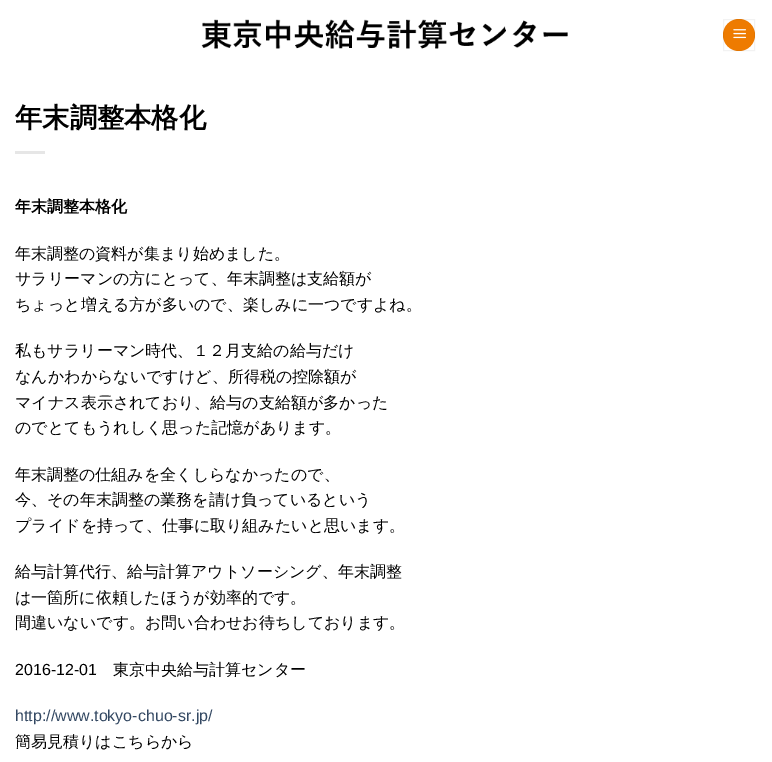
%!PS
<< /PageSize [772 762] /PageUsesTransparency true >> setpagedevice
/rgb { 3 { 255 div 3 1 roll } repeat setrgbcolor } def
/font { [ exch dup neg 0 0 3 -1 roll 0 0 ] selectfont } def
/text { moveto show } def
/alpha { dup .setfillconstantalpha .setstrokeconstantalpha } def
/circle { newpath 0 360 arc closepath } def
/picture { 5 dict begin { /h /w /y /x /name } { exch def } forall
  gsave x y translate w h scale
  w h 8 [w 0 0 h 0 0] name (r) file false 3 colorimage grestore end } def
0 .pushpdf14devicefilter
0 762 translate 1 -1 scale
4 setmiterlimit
255 255 255 rgb
0 0 772 762 rectfill
(img_01.rgb) 201 19 367 30 picture
238 123 0 rgb
739 35 16 circle fill
0.05 alpha
0 0 0 rgb
723.5 19.5 31 31 rectstroke
1 alpha
(img_02.rgb) 733 29 13 10 picture
230 230 230 rgb
15 151 30 3 rectfill
/WenQuanYiZenHei-Bold 27.25 font
0 0 0 rgb
(年末調整本格化) 15 127 text
/WenQuanYiZenHei-Bold 16 font
(年末調整本格化) 15 212 text
/WenQuanYiZenHei-Medium 16 font
(年末調整の資料が集まり始めました。) 15 259 text
(サラリーマンの方にとって、年末調整は支給額が) 15 284 text
(ちょっと増える方が多いので、楽しみに一つですよね。) 15 310 text
(私もサラリーマン時代、１２月支給の給与だけ) 15 356 text
(なんかわからないですけど、所得税の控除額が) 15 382 text
(マイナス表示されており、給与の支給額が多かった) 15 408 text
(のでとてもうれしく思った記憶があります。) 15 433 text
(年末調整の仕組みを全くしらなかったので、) 15 480 text
(今、その年末調整の業務を請け負っているという) 15 505 text
(プライドを持って、仕事に取り組みたいと思います。) 15 531 text
(給与計算代行、給与計算アウトソーシング、年末調整) 15 577 text
(は一箇所に依頼したほうが効率的です。) 15 603 text
(間違いないです。お問い合わせお待ちしております。) 15 628 text
/LiberationSans-Regular 16 font
(2016-12-01) 15 675 text
/WenQuanYiZenHei-Medium 16 font
(東京中央給与計算センター) 113 675 text
/LiberationSans-Regular 16 font
51 72 98 rgb
(http://www.tokyo-chuo-sr.jp/) 15 721 text
/WenQuanYiZenHei-Medium 16 font
0 0 0 rgb
(簡易見積りはこちらから) 15 747 text
.poppdf14devicefilter showpage
